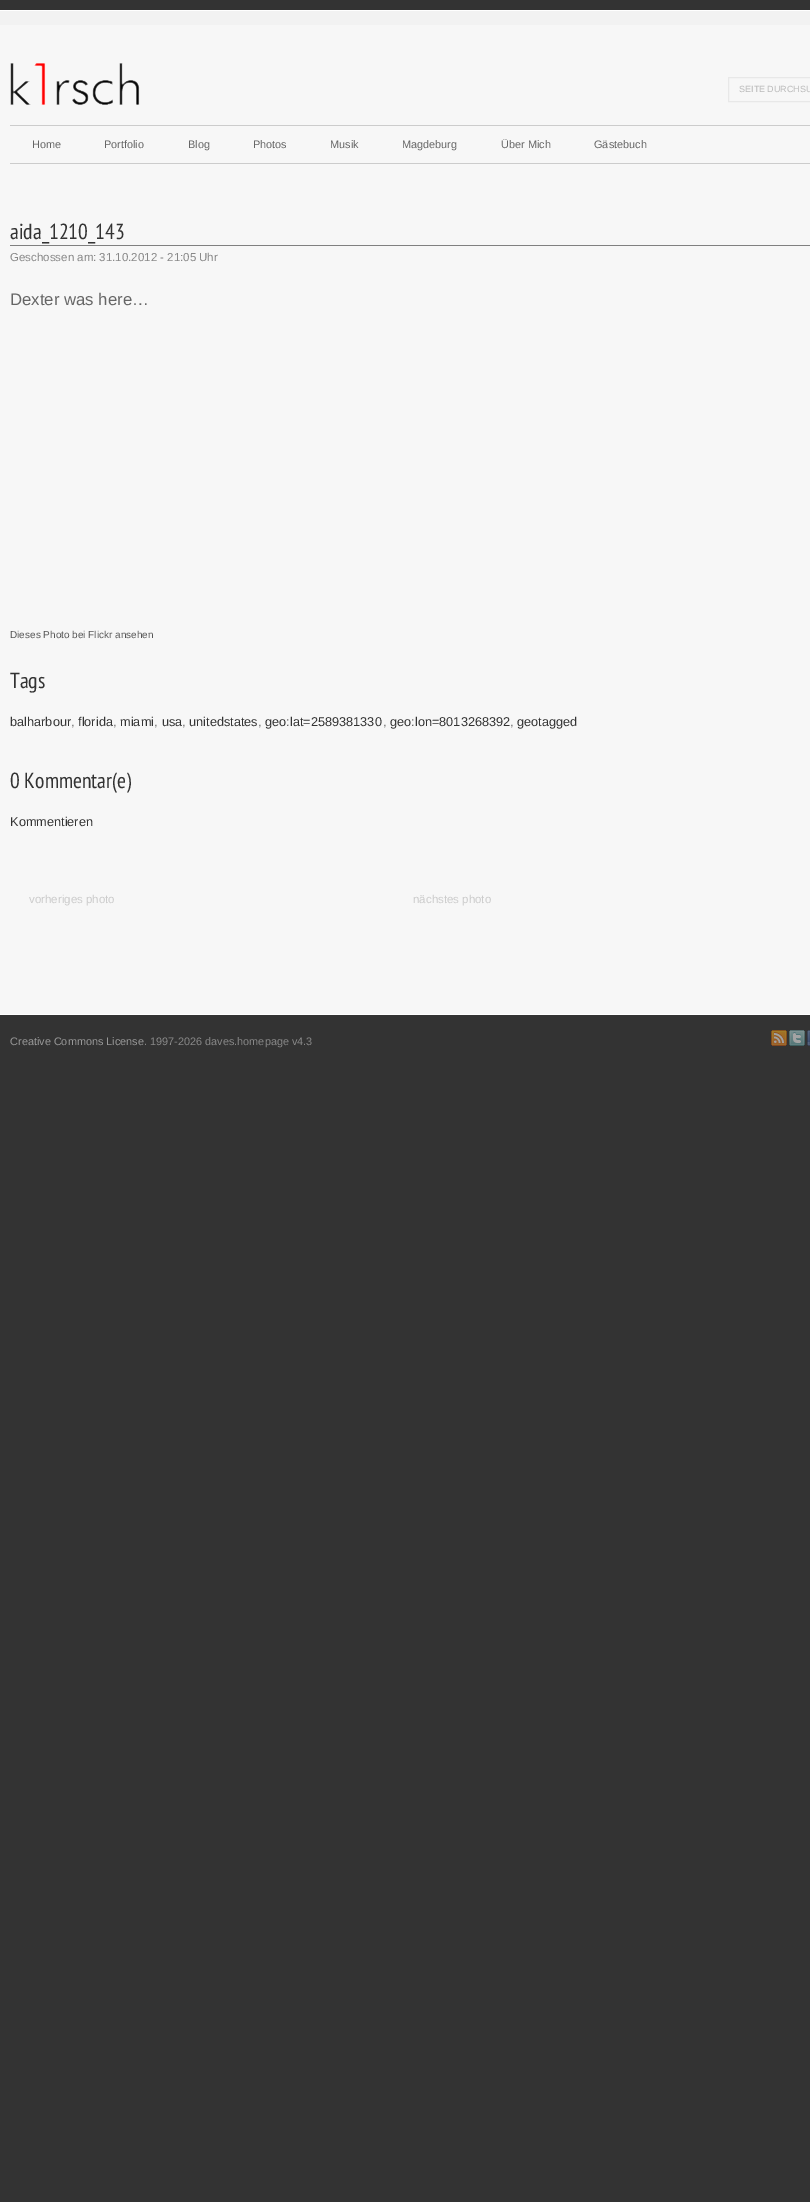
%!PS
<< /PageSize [810 2202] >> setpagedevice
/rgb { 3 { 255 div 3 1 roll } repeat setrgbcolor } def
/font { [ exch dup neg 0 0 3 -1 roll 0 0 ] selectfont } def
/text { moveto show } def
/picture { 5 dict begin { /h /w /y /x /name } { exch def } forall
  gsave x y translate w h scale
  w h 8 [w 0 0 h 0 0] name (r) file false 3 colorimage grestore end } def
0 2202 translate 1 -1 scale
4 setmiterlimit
51 51 51 rgb
0 0 810 2202 rectfill
247 247 247 rgb
0 25 810 989 rectfill
242 242 242 rgb
0 11 810 14 rectfill
255 255 255 rgb
0 10 810 1 rectfill
0 1014 810 1 rectfill
(img_01.rgb) 10 63 130 42 picture
232 232 232 rgb
728.5 77.5 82 24 rectstroke
204 204 204 rgb
10 125 800 1 rectfill
10 163 800 1 rectfill
128 128 128 rgb
10 245 800 1 rectfill
(img_02.rgb) 771 1030 16 16 picture
(img_03.rgb) 789 1030 16 16 picture
(img_04.rgb) 807 1030 3 16 picture
/LiberationSans-Regular 9 font
185 185 185 rgb
(SEITE DURCHSU) 739 92 text
/LiberationSans-Regular 10.9 font
102 102 102 rgb
(Home) 32 148 text
(Portfolio) 104 148 text
(Blog) 188 148 text
(Photos) 253 148 text
(Musik) 330 148 text
(Magdeburg) 402 148 text
(Über Mich) 501 148 text
(Gästebuch) 594 148 text
/PTSansNarrow-Regular 21.75 font
51 51 51 rgb
(aida_1210_143) 10 239 text
/LiberationSans-Regular 11.5 font
136 136 136 rgb
(Geschossen am: 31.10.2012 - 21:05 Uhr) 10 261 text
/LiberationSans-Regular 16.75 font
102 102 102 rgb
(Dexter was here…) 10 305 text
/LiberationSans-Regular 10 font
85 85 85 rgb
(Dieses Photo bei Flickr ansehen) 10 638 text
/PTSansNarrow-Regular 21.75 font
51 51 51 rgb
(Tags) 10 688 text
/LiberationSans-Regular 12.75 font
(balharbour) 10 726 text
102 102 102 rgb
(,) 71 726 text
51 51 51 rgb
(florida) 78 726 text
102 102 102 rgb
(,) 113 726 text
51 51 51 rgb
(miami) 120 726 text
102 102 102 rgb
(,) 154 726 text
51 51 51 rgb
(usa) 162 726 text
102 102 102 rgb
(,) 182 726 text
51 51 51 rgb
(unitedstates) 189 726 text
102 102 102 rgb
(,) 258 726 text
51 51 51 rgb
(geo:lat=2589381330) 265 726 text
102 102 102 rgb
(,) 383 726 text
51 51 51 rgb
(geo:lon=8013268392) 390 726 text
102 102 102 rgb
(,) 510 726 text
51 51 51 rgb
(geotagged) 517 726 text
/PTSansNarrow-Regular 21.75 font
(0 Kommentar\(e\)) 10 788 text
/LiberationSans-Regular 12.75 font
(Kommentieren) 10 826 text
/LiberationSans-Regular 11.5 font
204 204 204 rgb
(vorheriges photo) 29 903 text
(nächstes photo) 413 903 text
/LiberationSans-Regular 10.9 font
153 153 153 rgb
(Creative Commons License) 10 1045 text
136 136 136 rgb
(. 1997-2026 daves.homepage v4.3) 144 1045 text
showpage
